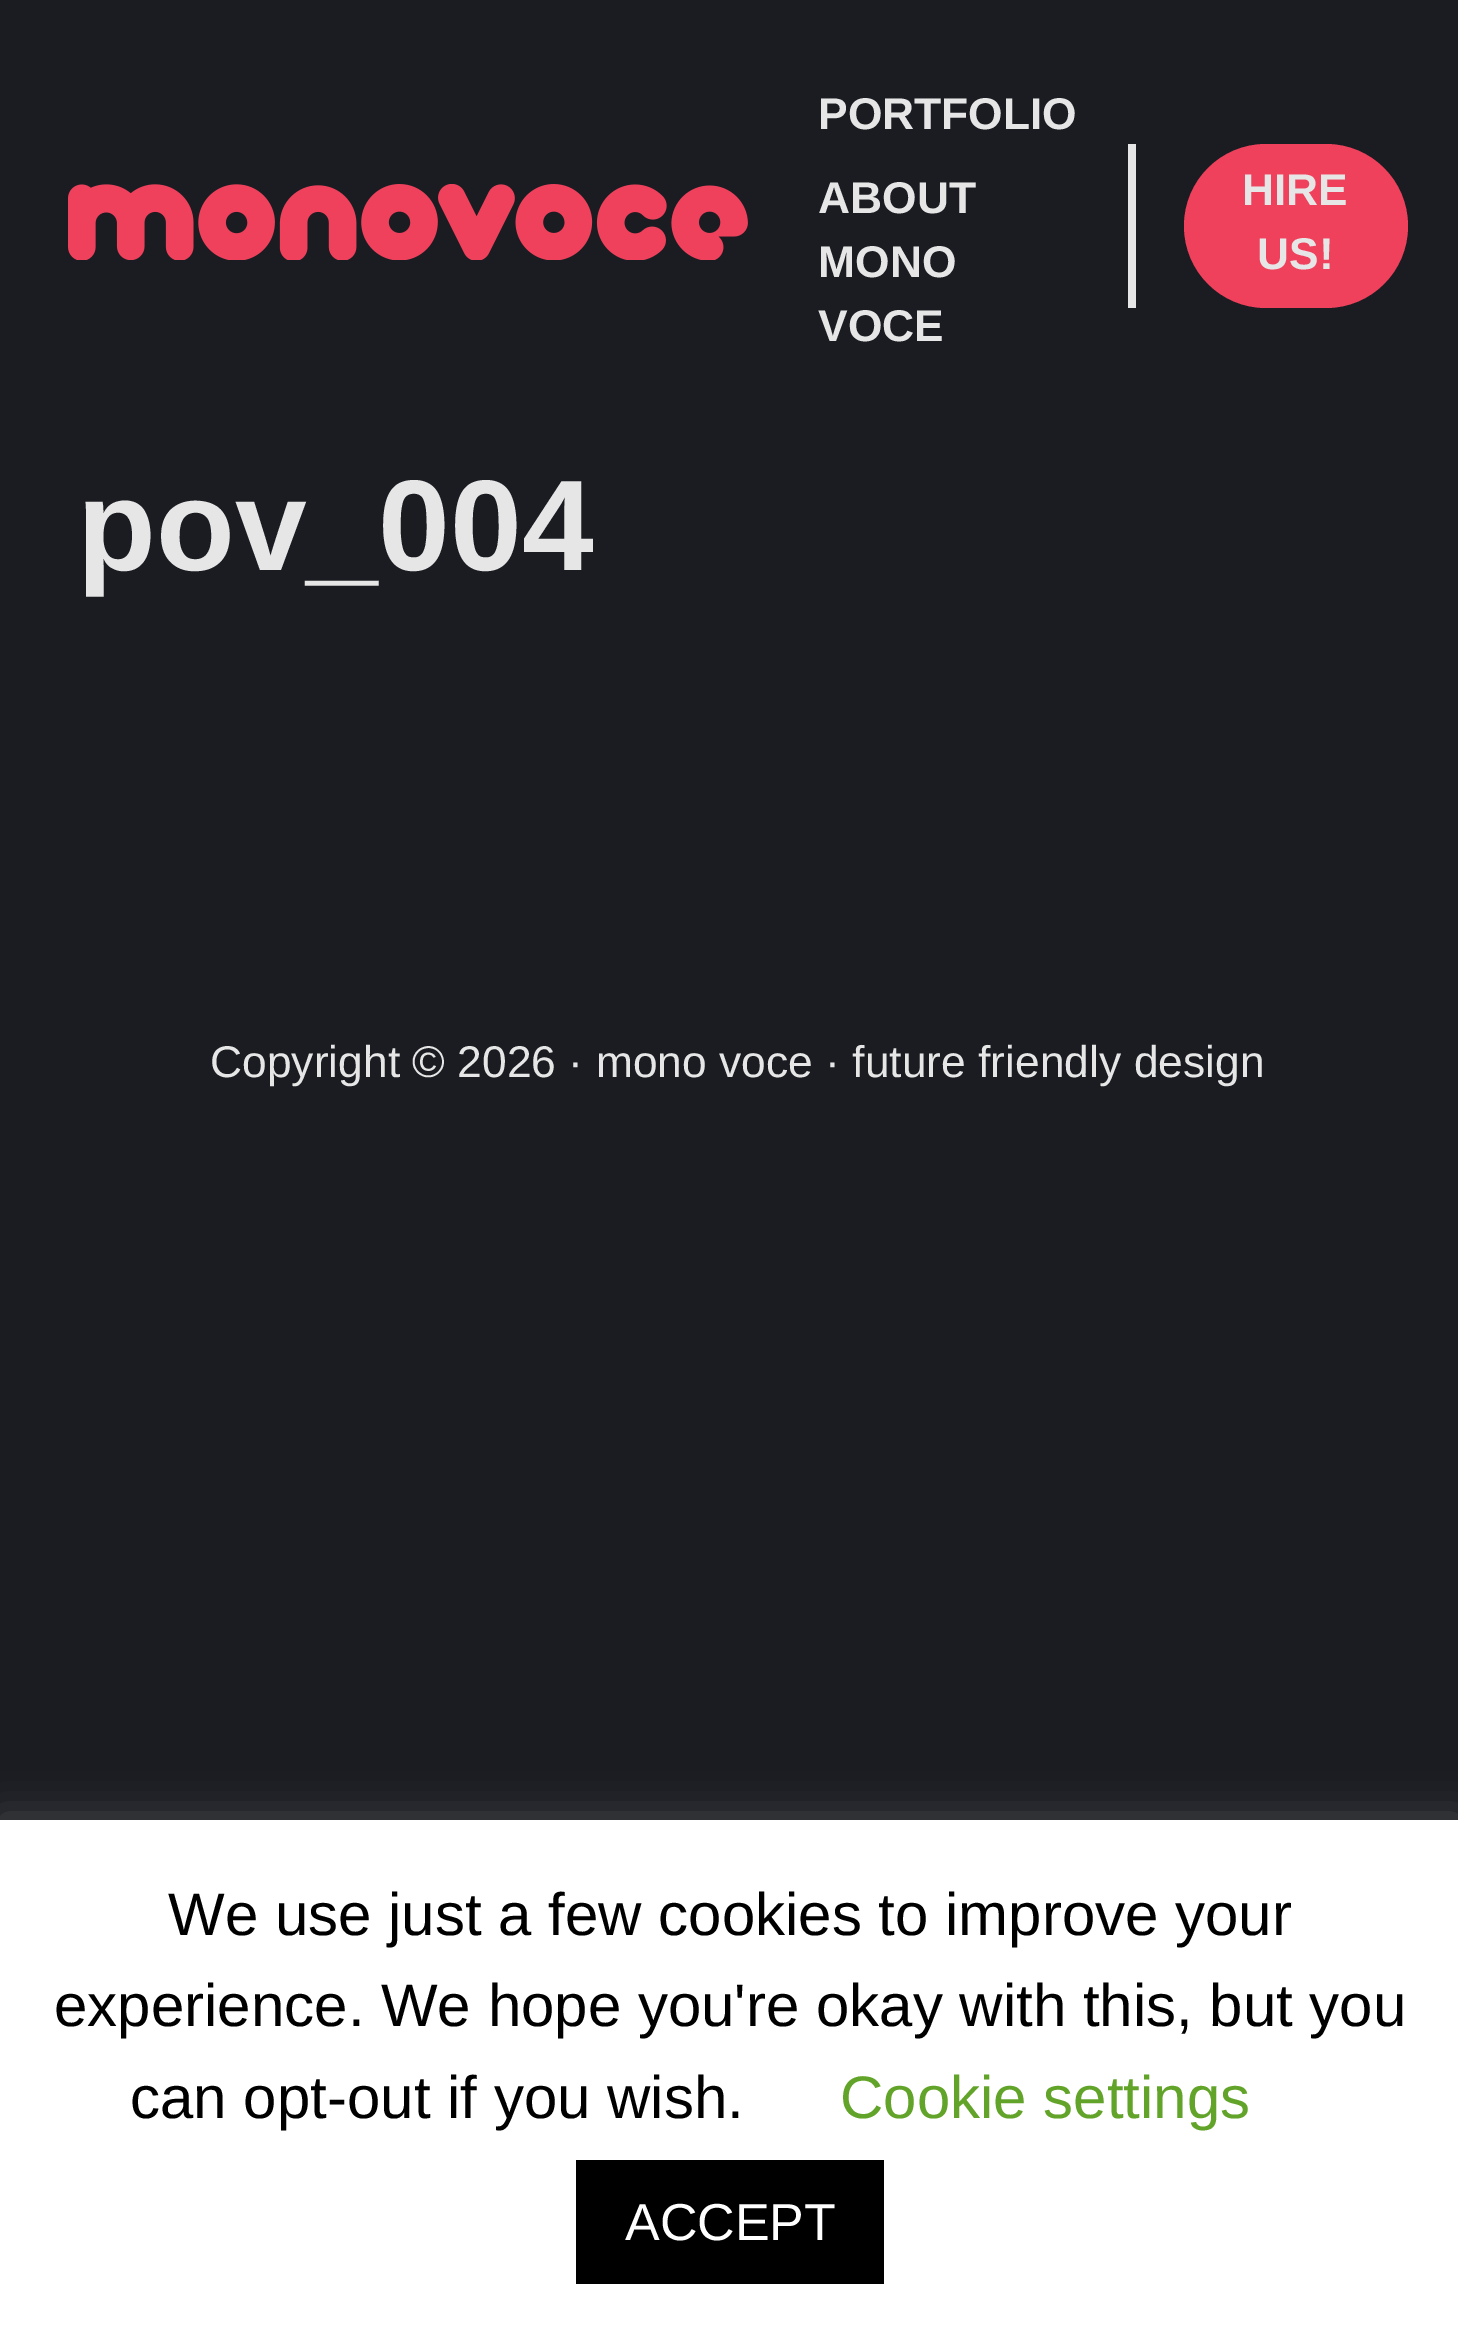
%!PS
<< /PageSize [1458 2349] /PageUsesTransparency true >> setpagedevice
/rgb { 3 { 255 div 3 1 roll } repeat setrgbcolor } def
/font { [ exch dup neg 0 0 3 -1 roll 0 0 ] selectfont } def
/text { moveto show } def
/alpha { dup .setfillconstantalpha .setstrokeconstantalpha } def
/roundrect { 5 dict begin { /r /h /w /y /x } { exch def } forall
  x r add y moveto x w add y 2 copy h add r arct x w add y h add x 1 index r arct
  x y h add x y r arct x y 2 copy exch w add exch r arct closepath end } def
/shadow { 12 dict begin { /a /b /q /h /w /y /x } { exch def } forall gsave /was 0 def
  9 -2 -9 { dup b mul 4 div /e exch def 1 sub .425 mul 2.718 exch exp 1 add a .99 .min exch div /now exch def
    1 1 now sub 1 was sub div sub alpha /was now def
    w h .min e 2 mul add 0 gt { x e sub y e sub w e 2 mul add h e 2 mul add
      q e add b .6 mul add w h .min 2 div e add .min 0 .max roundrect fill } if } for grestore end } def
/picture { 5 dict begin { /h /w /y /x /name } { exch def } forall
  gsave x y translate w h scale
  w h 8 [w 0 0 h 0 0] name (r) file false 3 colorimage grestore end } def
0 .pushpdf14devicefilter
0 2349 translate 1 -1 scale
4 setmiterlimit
26 28 33 rgb
0 0 1458 2349 rectfill
(img_01.rgb) 68 184 680 76 picture
230 230 230 rgb
1128 144 8 164 rectfill
239 64 92 rgb
1184 144 224 164 82 roundrect fill
172 171 171 rgb
0 1816 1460 532 0 20 0.3 shadow
255 255 255 rgb
0 1820 1458 529 rectfill
0 0 0 rgb
576 2160 308 124 rectfill
/LiberationSans-Bold 44.4 font
230 230 230 rgb
(PORTFOLIO) 818 129 text
(ABOUT) 818 213 text
(MONO) 818 277 text
(VOCE) 818 341 text
(HIRE) 1242 205 text
(US!) 1257 269 text
/LiberationSans-Bold 129 font
(pov_004) 77 570 text
/LiberationSans-Regular 44.4 font
(Copyright © 2026 · mono voce · future friendly design) 210 1077 text
/LiberationSans-Regular 60 font
0 0 0 rgb
(We use just a few cookies to improve your) 168 1935 text
(experience. We hope you're okay with this, but you) 54 2026 text
(can opt-out if you wish.) 130 2118 text
98 163 41 rgb
(Cookie settings) 840 2118 text
/LiberationSans-Regular 52 font
255 255 255 rgb
(ACCEPT) 625 2240 text
.poppdf14devicefilter showpage
